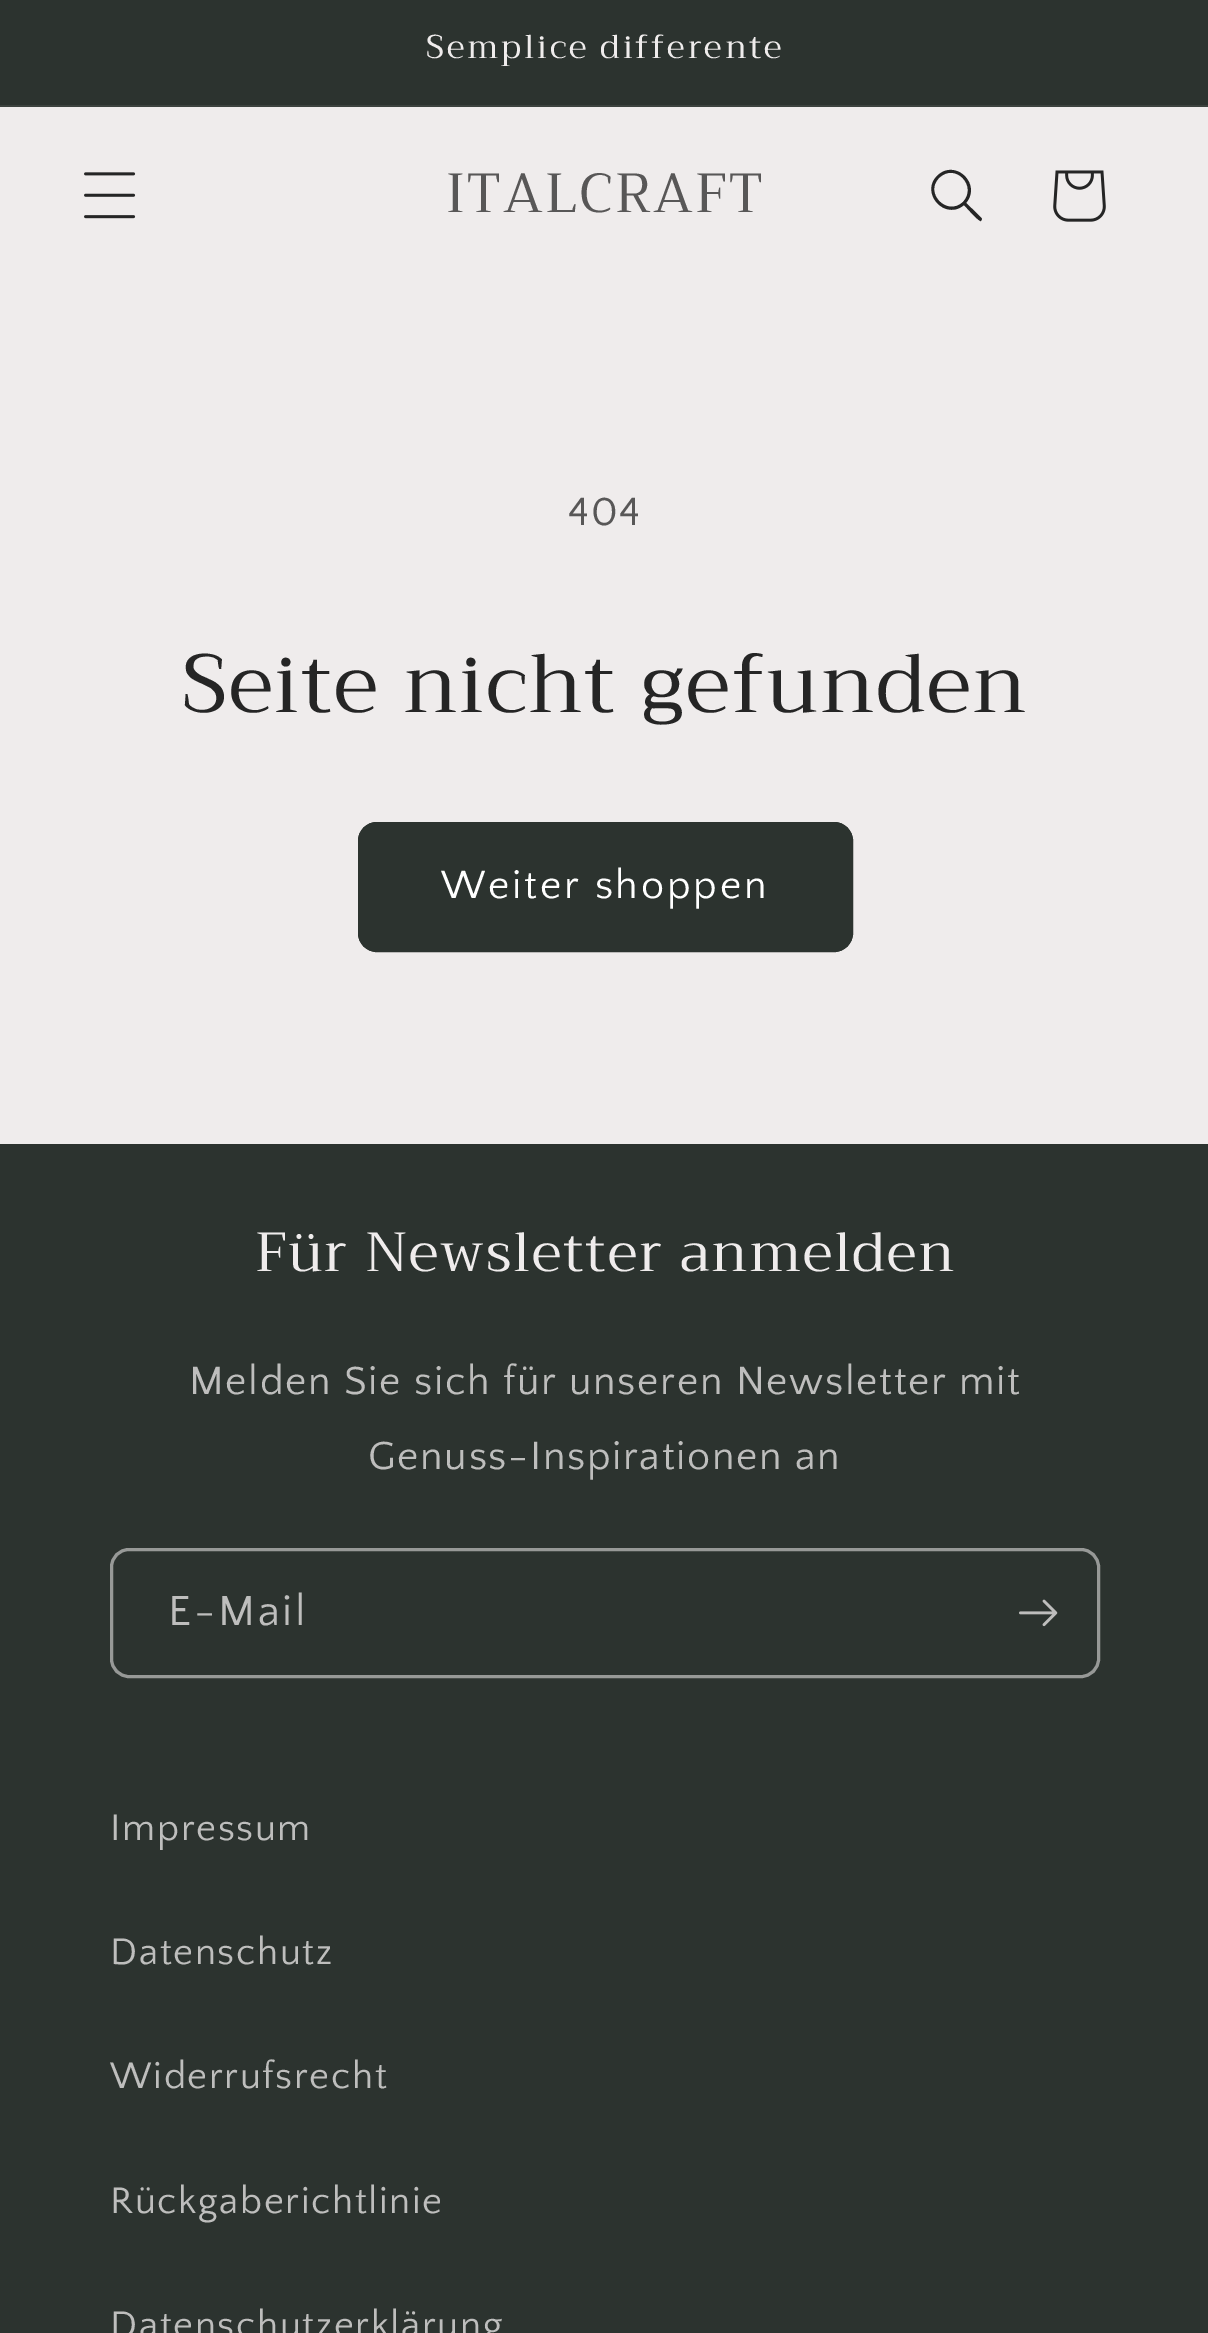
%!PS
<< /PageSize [1208 2333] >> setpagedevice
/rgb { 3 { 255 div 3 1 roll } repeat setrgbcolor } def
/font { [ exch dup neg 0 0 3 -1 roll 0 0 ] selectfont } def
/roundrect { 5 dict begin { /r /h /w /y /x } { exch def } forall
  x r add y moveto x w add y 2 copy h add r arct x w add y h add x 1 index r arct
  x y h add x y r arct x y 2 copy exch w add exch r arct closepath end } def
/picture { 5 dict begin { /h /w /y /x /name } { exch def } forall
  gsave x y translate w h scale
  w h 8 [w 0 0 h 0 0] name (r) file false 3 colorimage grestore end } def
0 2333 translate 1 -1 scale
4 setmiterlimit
239 236 236 rgb
0 0 1208 2333 rectfill
44 51 47 rgb
0 0 1208 105 rectfill
60 66 62 rgb
0 105 1208 2 rectfill
(img_01.rgb) 84 172 52 47 picture
37 37 37 rgb
963 202 moveto -16 15 -39 -9 -24 -24 rcurveto 16 -16 39 8 24 24 rcurveto closepath 964 205 moveto -19 16 -44 -12 -27 -29 rcurveto 18 -18 45 8 29 27 rcurveto 2 2 16 15 16 16 rcurveto -1 2 rlineto -2 1 -15 -14 -17 -16 rcurveto closepath eofill
(img_02.rgb) 1053 170 53 52 picture
44 51 47 rgb
358 822 495 130 19 roundrect fill
3 setlinewidth
359.5 823.5 492 127 17.5 roundrect stroke
0 1144 1208 1189 rectfill
151 153 151 rgb
111.5 1549.5 987 127 17.5 roundrect stroke
(img_03.rgb) 1019 1599 39 28 picture
/Trirong-Regular 33 font
239 236 236 rgb
426 58 moveto 2.75 0 (Semplice differente) ashow
/Trirong-Regular 55 font
88 87 87 rgb
446 212 moveto 1.65 0 (ITALCRAFT) ashow
/QuattrocentoSans-Regular 41.25 font
568 525 moveto 1.65 0 (404) ashow
/Trirong-Regular 82.5 font
37 37 37 rgb
182 712 moveto 1.65 0 (Seite nicht gefunden) ashow
/QuattrocentoSans-Regular 41.25 font
255 255 255 rgb
441 898 moveto 2.75 0 (Weiter shoppen) ashow
/Trirong-Regular 55 font
239 236 236 rgb
255 1271 moveto 1.65 0 (Für Newsletter anmelden) ashow
/QuattrocentoSans-Regular 41.25 font
190 190 189 rgb
189 1394 moveto 1.65 0 (Melden Sie sich für unseren Newsletter mit) ashow
368 1469 moveto 1.65 0 (Genuss-Inspirationen an) ashow
/QuattrocentoSans-Regular 44 font
168 1625 moveto 2.75 0 (E-Mail) ashow
/QuattrocentoSans-Regular 38.5 font
110 1840 moveto 1.65 0 (Impressum) ashow
110 1964 moveto 1.65 0 (Datenschutz) ashow
110 2088 moveto 1.65 0 (Widerrufsrecht) ashow
110 2213 moveto 1.65 0 (Rückgaberichtlinie) ashow
110 2337 moveto 1.65 0 (Datenschutzerklärung) ashow
showpage
